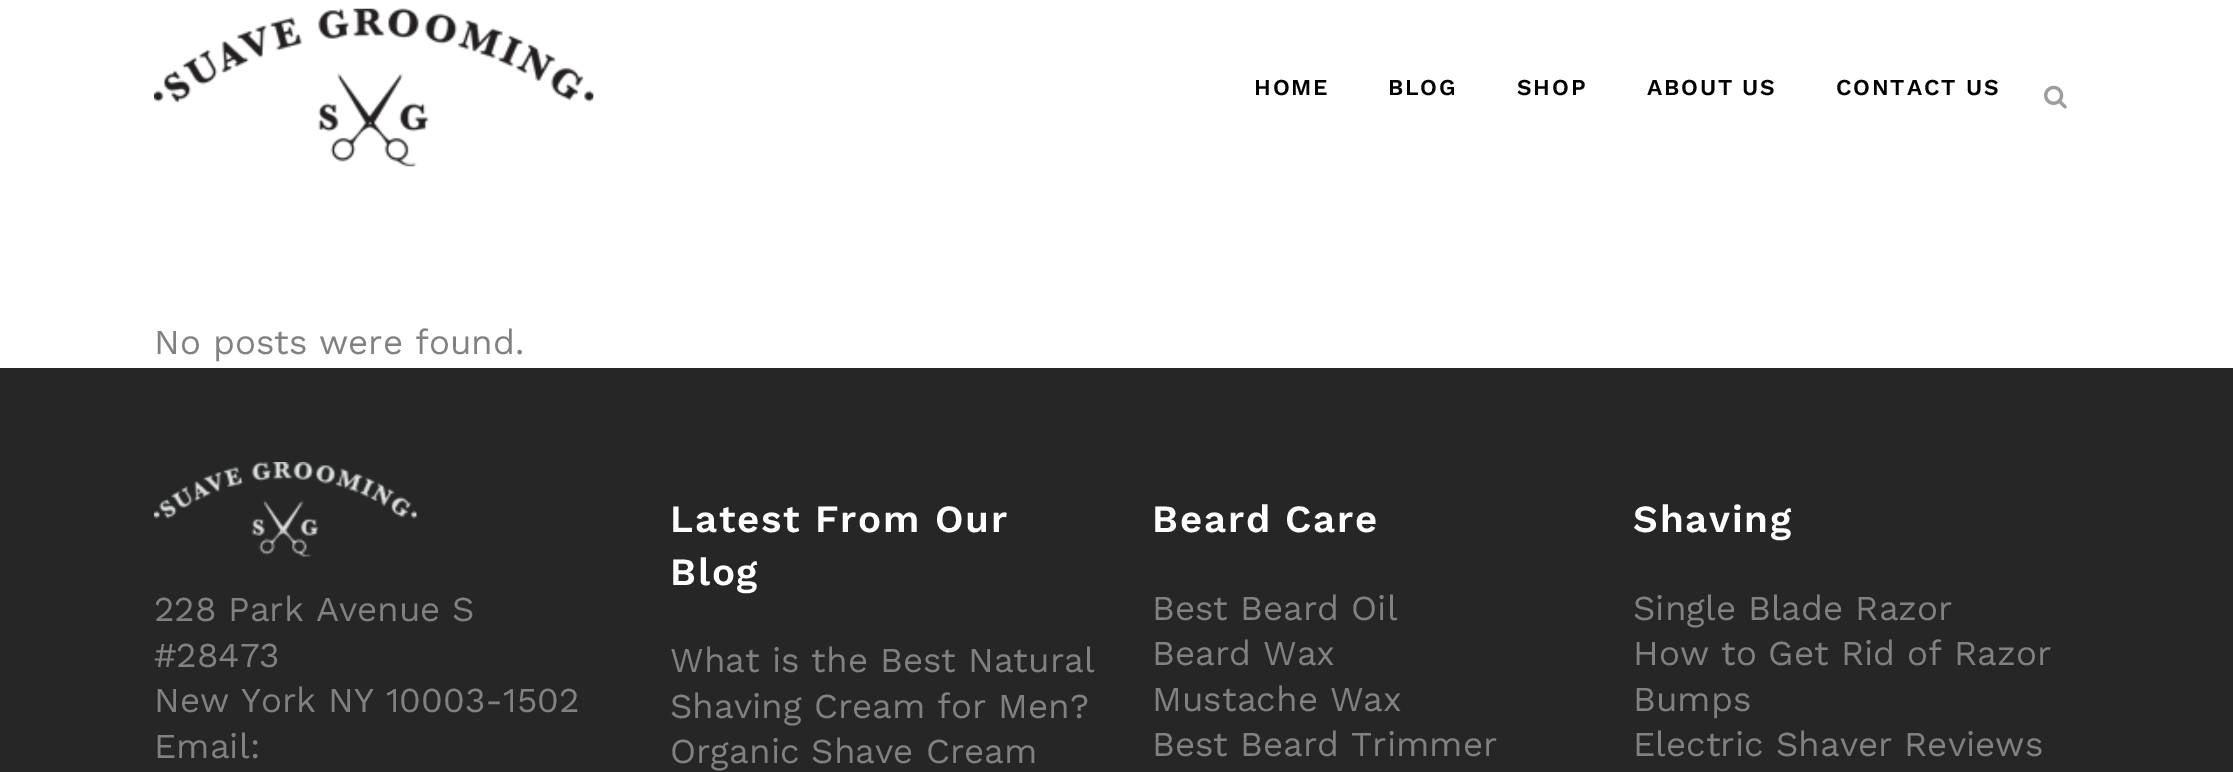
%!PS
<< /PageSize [2233 772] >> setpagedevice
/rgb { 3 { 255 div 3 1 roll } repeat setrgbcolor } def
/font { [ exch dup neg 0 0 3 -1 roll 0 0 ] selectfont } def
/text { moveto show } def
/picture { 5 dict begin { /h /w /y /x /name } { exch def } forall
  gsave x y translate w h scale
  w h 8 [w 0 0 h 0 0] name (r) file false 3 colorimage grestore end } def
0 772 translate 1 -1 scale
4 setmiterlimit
255 255 255 rgb
0 0 2233 772 rectfill
(img_01.rgb) 154 8 440 159 picture
(img_02.rgb) 2044 85 23 24 picture
38 38 38 rgb
0 368 2233 404 rectfill
(img_03.rgb) 154 462 263 95 picture
/WorkSans-SemiBold 22.75 font
0 0 0 rgb
1254 95 moveto 1.75 0 (HOME) ashow
1388 95 moveto 1.75 0 (BLOG) ashow
1517 95 moveto 1.75 0 (SHOP) ashow
1647 95 moveto 1.75 0 (ABOUT US) ashow
1836 95 moveto 1.75 0 (CONTACT US) ashow
/WorkSans-Regular 35 font
129 129 129 rgb
(No posts were found.) 154 354 text
(228 Park Avenue S) 154 621 text
(#28473) 154 667 text
(New York NY 10003-1502) 154 712 text
(Email:) 154 758 text
/WorkSans-SemiBold 38.5 font
255 255 255 rgb
670 532 moveto 1.75 0 (Latest From Our) ashow
670 585 moveto 1.75 0 (Blog) ashow
/WorkSans-Regular 35 font
129 129 129 rgb
(What is the Best Natural) 670 672 text
(Shaving Cream for Men?) 670 718 text
(Organic Shave Cream) 670 763 text
/WorkSans-SemiBold 38.5 font
255 255 255 rgb
1152 532 moveto 1.75 0 (Beard Care) ashow
/WorkSans-Regular 35 font
129 129 129 rgb
(Best Beard Oil) 1152 620 text
(Beard Wax) 1152 665 text
(Mustache Wax) 1152 711 text
(Best Beard Trimmer) 1152 756 text
/WorkSans-SemiBold 38.5 font
255 255 255 rgb
1633 532 moveto 1.75 0 (Shaving) ashow
/WorkSans-Regular 35 font
129 129 129 rgb
(Single Blade Razor) 1633 620 text
(How to Get Rid of Razor) 1633 665 text
(Bumps) 1633 711 text
(Electric Shaver Reviews) 1633 756 text
showpage
